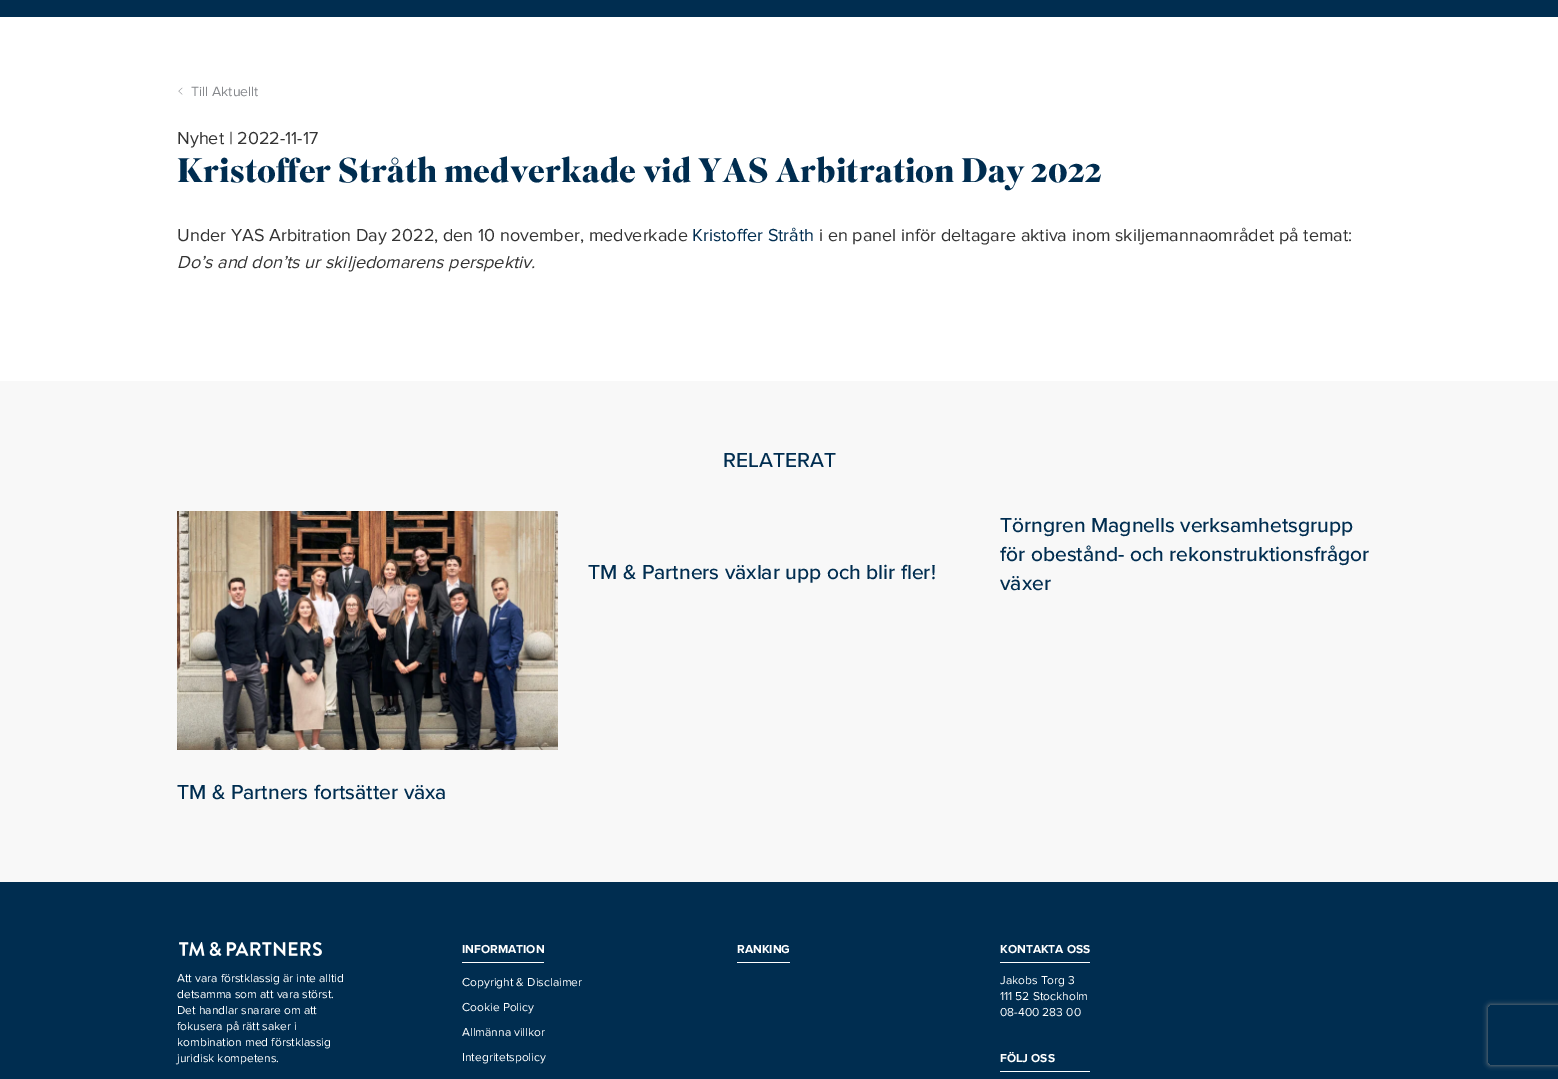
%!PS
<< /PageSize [1558 1079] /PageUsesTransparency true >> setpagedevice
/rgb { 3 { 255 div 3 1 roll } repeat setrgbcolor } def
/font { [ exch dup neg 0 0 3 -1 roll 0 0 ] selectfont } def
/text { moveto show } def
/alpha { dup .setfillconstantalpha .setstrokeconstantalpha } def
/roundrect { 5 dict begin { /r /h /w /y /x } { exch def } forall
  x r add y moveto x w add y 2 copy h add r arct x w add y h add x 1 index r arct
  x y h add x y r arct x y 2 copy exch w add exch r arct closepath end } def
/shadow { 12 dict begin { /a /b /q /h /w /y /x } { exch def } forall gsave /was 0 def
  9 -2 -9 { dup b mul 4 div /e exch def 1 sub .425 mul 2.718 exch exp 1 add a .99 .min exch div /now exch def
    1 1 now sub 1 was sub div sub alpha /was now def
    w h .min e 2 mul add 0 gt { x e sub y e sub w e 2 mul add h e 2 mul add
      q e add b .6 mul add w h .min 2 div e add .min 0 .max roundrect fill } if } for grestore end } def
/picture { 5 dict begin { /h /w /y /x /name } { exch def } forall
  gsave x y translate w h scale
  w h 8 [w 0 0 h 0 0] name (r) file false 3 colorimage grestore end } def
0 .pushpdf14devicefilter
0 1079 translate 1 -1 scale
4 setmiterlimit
255 255 255 rgb
0 0 1558 1079 rectfill
0 45 80 rgb
0 0 1558 17 rectfill
(img_01.rgb) 178 87 5 8 picture
248 248 248 rgb
0 381 1558 501 rectfill
(img_02.rgb) 177 511 381 239 picture
0 45 80 rgb
0 882 1558 197 rectfill
(img_03.rgb) 179 942 143 14 picture
255 255 255 rgb
462 962 82 1 rectfill
737 962 53 1 rectfill
1000 962 90 1 rectfill
1000 1071 90 1 rectfill
gsave
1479 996 moveto 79 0 rlineto 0 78 rlineto -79 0 rlineto closepath 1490 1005 moveto 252 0 rlineto 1 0 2 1 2 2 rcurveto 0 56 rlineto 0 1 -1 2 -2 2 rcurveto -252 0 rlineto -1 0 -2 -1 -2 -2 rcurveto 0 -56 rlineto 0 -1 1 -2 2 -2 rcurveto closepath eoclip newpath
128 128 128 rgb
1488 1005 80 60 2 2.5 1 shadow
grestore
/ProximaNova-Regular 14 font
134 136 140 rgb
(Till Aktuellt) 191 96 text
/ProximaNova-Regular 18 font
51 51 51 rgb
(Nyhet | 2022-11-17) 177 144 text
/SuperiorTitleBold-Bold 34 font
0 45 80 rgb
(Kristoffer Stråth medverkade vid YAS Arbitration Day 2022) 177 182 text
/ProximaNova-Regular 18 font
51 51 51 rgb
(Under YAS Arbitration Day 2022, den 10 november, medverkade) 177 241 text
0 45 80 rgb
(Kristoffer Stråth) 692 241 text
51 51 51 rgb
(i en panel inför deltagare aktiva inom skiljemannaområdet på temat:) 819 241 text
/ProximaNova-Italic 18 font
(Do’s and don’ts ur skiljedomarens perspektiv.) 177 268 text
/ProximaNova-Medium 21 font
0 45 80 rgb
(RELATERAT) 723 467 text
(TM & Partners växlar upp och blir fler!) 588 579 text
(Törngren Magnells verksamhetsgrupp) 1000 532 text
(för obestånd- och rekonstruktionsfrågor) 1000 561 text
(växer) 1000 590 text
(TM & Partners fortsätter växa) 177 799 text
/ProximaNova-Regular 12 font
255 255 255 rgb
(Att vara förstklassig är inte alltid) 177 982 text
(detsamma som att vara störst.) 177 998 text
(Det handlar snarare om att) 177 1014 text
(fokusera på rätt saker i) 177 1030 text
(kombination med förstklassig) 177 1046 text
(juridisk kompetens.) 177 1062 text
/ProximaNova-Bold 12 font
(INFORMATION) 462 953 text
/ProximaNova-Regular 12 font
(Copyright & Disclaimer) 462 986 text
(Cookie Policy) 462 1011 text
(Allmänna villkor) 462 1036 text
(Integritetspolicy) 462 1061 text
/ProximaNova-Bold 12 font
(RANKING) 737 953 text
(KONTAKTA OSS) 1000 953 text
/ProximaNova-Regular 12 font
(Jakobs Torg 3) 1000 984 text
(111 52 Stockholm) 1000 1000 text
(08-400 283 00) 1000 1016 text
/ProximaNova-Bold 12 font
(FÖLJ OSS) 1000 1062 text
.poppdf14devicefilter showpage
